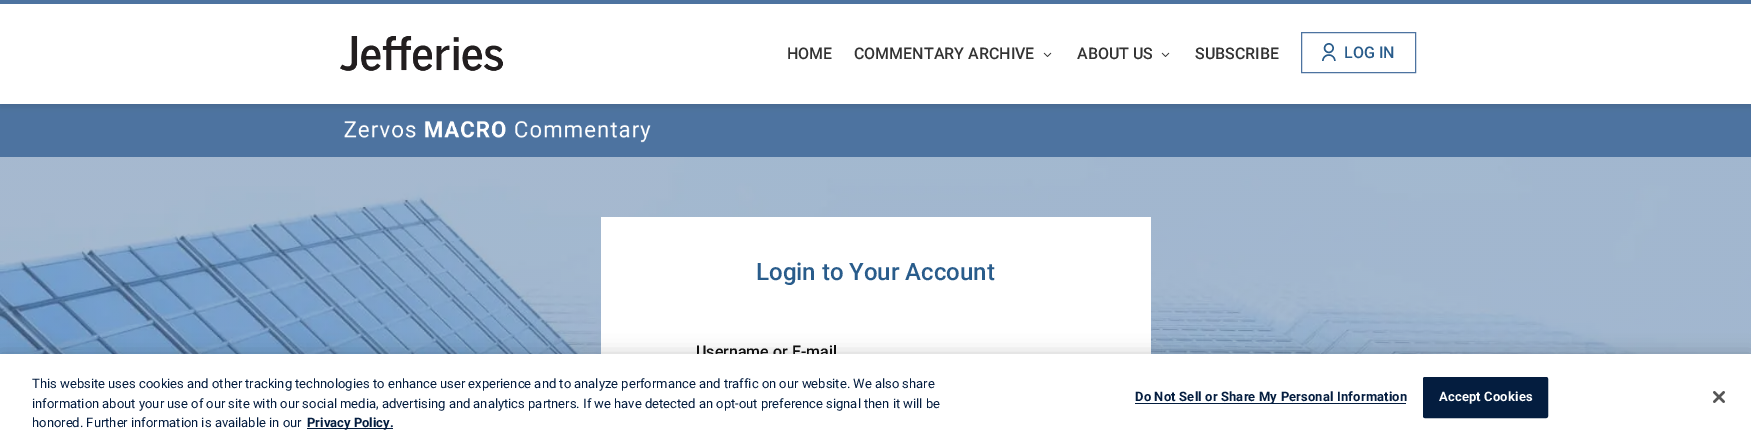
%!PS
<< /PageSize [1751 443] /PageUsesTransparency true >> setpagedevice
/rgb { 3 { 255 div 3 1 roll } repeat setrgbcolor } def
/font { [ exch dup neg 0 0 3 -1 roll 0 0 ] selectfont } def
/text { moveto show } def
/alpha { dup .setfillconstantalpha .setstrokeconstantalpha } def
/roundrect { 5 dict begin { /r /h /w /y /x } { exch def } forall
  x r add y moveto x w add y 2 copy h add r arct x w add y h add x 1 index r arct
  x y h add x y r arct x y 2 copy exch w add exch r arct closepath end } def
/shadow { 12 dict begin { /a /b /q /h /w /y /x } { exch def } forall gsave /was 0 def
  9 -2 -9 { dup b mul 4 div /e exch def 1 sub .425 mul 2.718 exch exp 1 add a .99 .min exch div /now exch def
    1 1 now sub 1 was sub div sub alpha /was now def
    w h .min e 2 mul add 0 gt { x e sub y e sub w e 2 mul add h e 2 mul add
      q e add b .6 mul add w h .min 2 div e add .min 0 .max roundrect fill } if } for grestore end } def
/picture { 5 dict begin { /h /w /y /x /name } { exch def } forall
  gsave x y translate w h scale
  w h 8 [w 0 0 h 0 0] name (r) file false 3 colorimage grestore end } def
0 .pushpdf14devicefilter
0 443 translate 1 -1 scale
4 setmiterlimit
255 255 255 rgb
0 0 1751 443 rectfill
(img_01.rgb) 0 157 1751 197 picture
77 115 160 rgb
0 104 1751 53 rectfill
0 0 0 rgb
0 3 1751 104 0 2.5 0.1 shadow
255 255 255 rgb
0 4 1751 100 rectfill
77 115 160 rgb
0 0 1751 4 rectfill
(img_02.rgb) 340 36 163 35 picture
(img_03.rgb) 1043 52 9 5 picture
(img_03.rgb) 1161 52 9 5 picture
1301.5 32.5 114 40 rectstroke
(img_04.rgb) 1322 43 14 18 picture
(img_05.rgb) 344 120 307 23 picture
255 255 255 rgb
601 217 550 137 rectfill
0 0 0 rgb
0 354 1751 89 0 9 0.2 shadow
/Roboto-Medium 16 font
51 51 51 rgb
(HOME) 787 59 text
(COMMENTARY ARCHIVE) 854 59 text
(ABOUT US) 1077 59 text
(SUBSCRIBE) 1195 59 text
41 92 139 rgb
(LOG IN) 1344 58 text
/Roboto-Medium 24 font
(Login to Your Account) 756 280 text
/Roboto-Medium 16 font
17 17 17 rgb
(Username or E-mail) 696 357 text
255 255 255 rgb
0 354 1751 89 rectfill
/Roboto-Regular 13 font
4 29 63 rgb
(This website uses cookies and other tracking technologies to enhance user experience and to analyze performance and traffic on our website. We also share) 32 388 text
(information about your use of our site with our social media, advertising and analytics partners. If we have detected an opt-out preference signal then it will be) 32 408 text
(honored. Further information is available in our) 32 427 text
307 428 86 1 rectfill
/Roboto-Bold 13 font
(Privacy Policy.) 307 427 text
1135 403 271 1 rectfill
1135 401 moveto 0.15 0 (Do Not Sell or Share My Personal Information) ashow
1423.5 377.5 124 40 1.5 roundrect gsave fill grestore
stroke
255 255 255 rgb
1439 401 moveto 0.15 0 (Accept Cookies) ashow
(img_06.rgb) 1713 391 12 12 picture
.poppdf14devicefilter showpage
